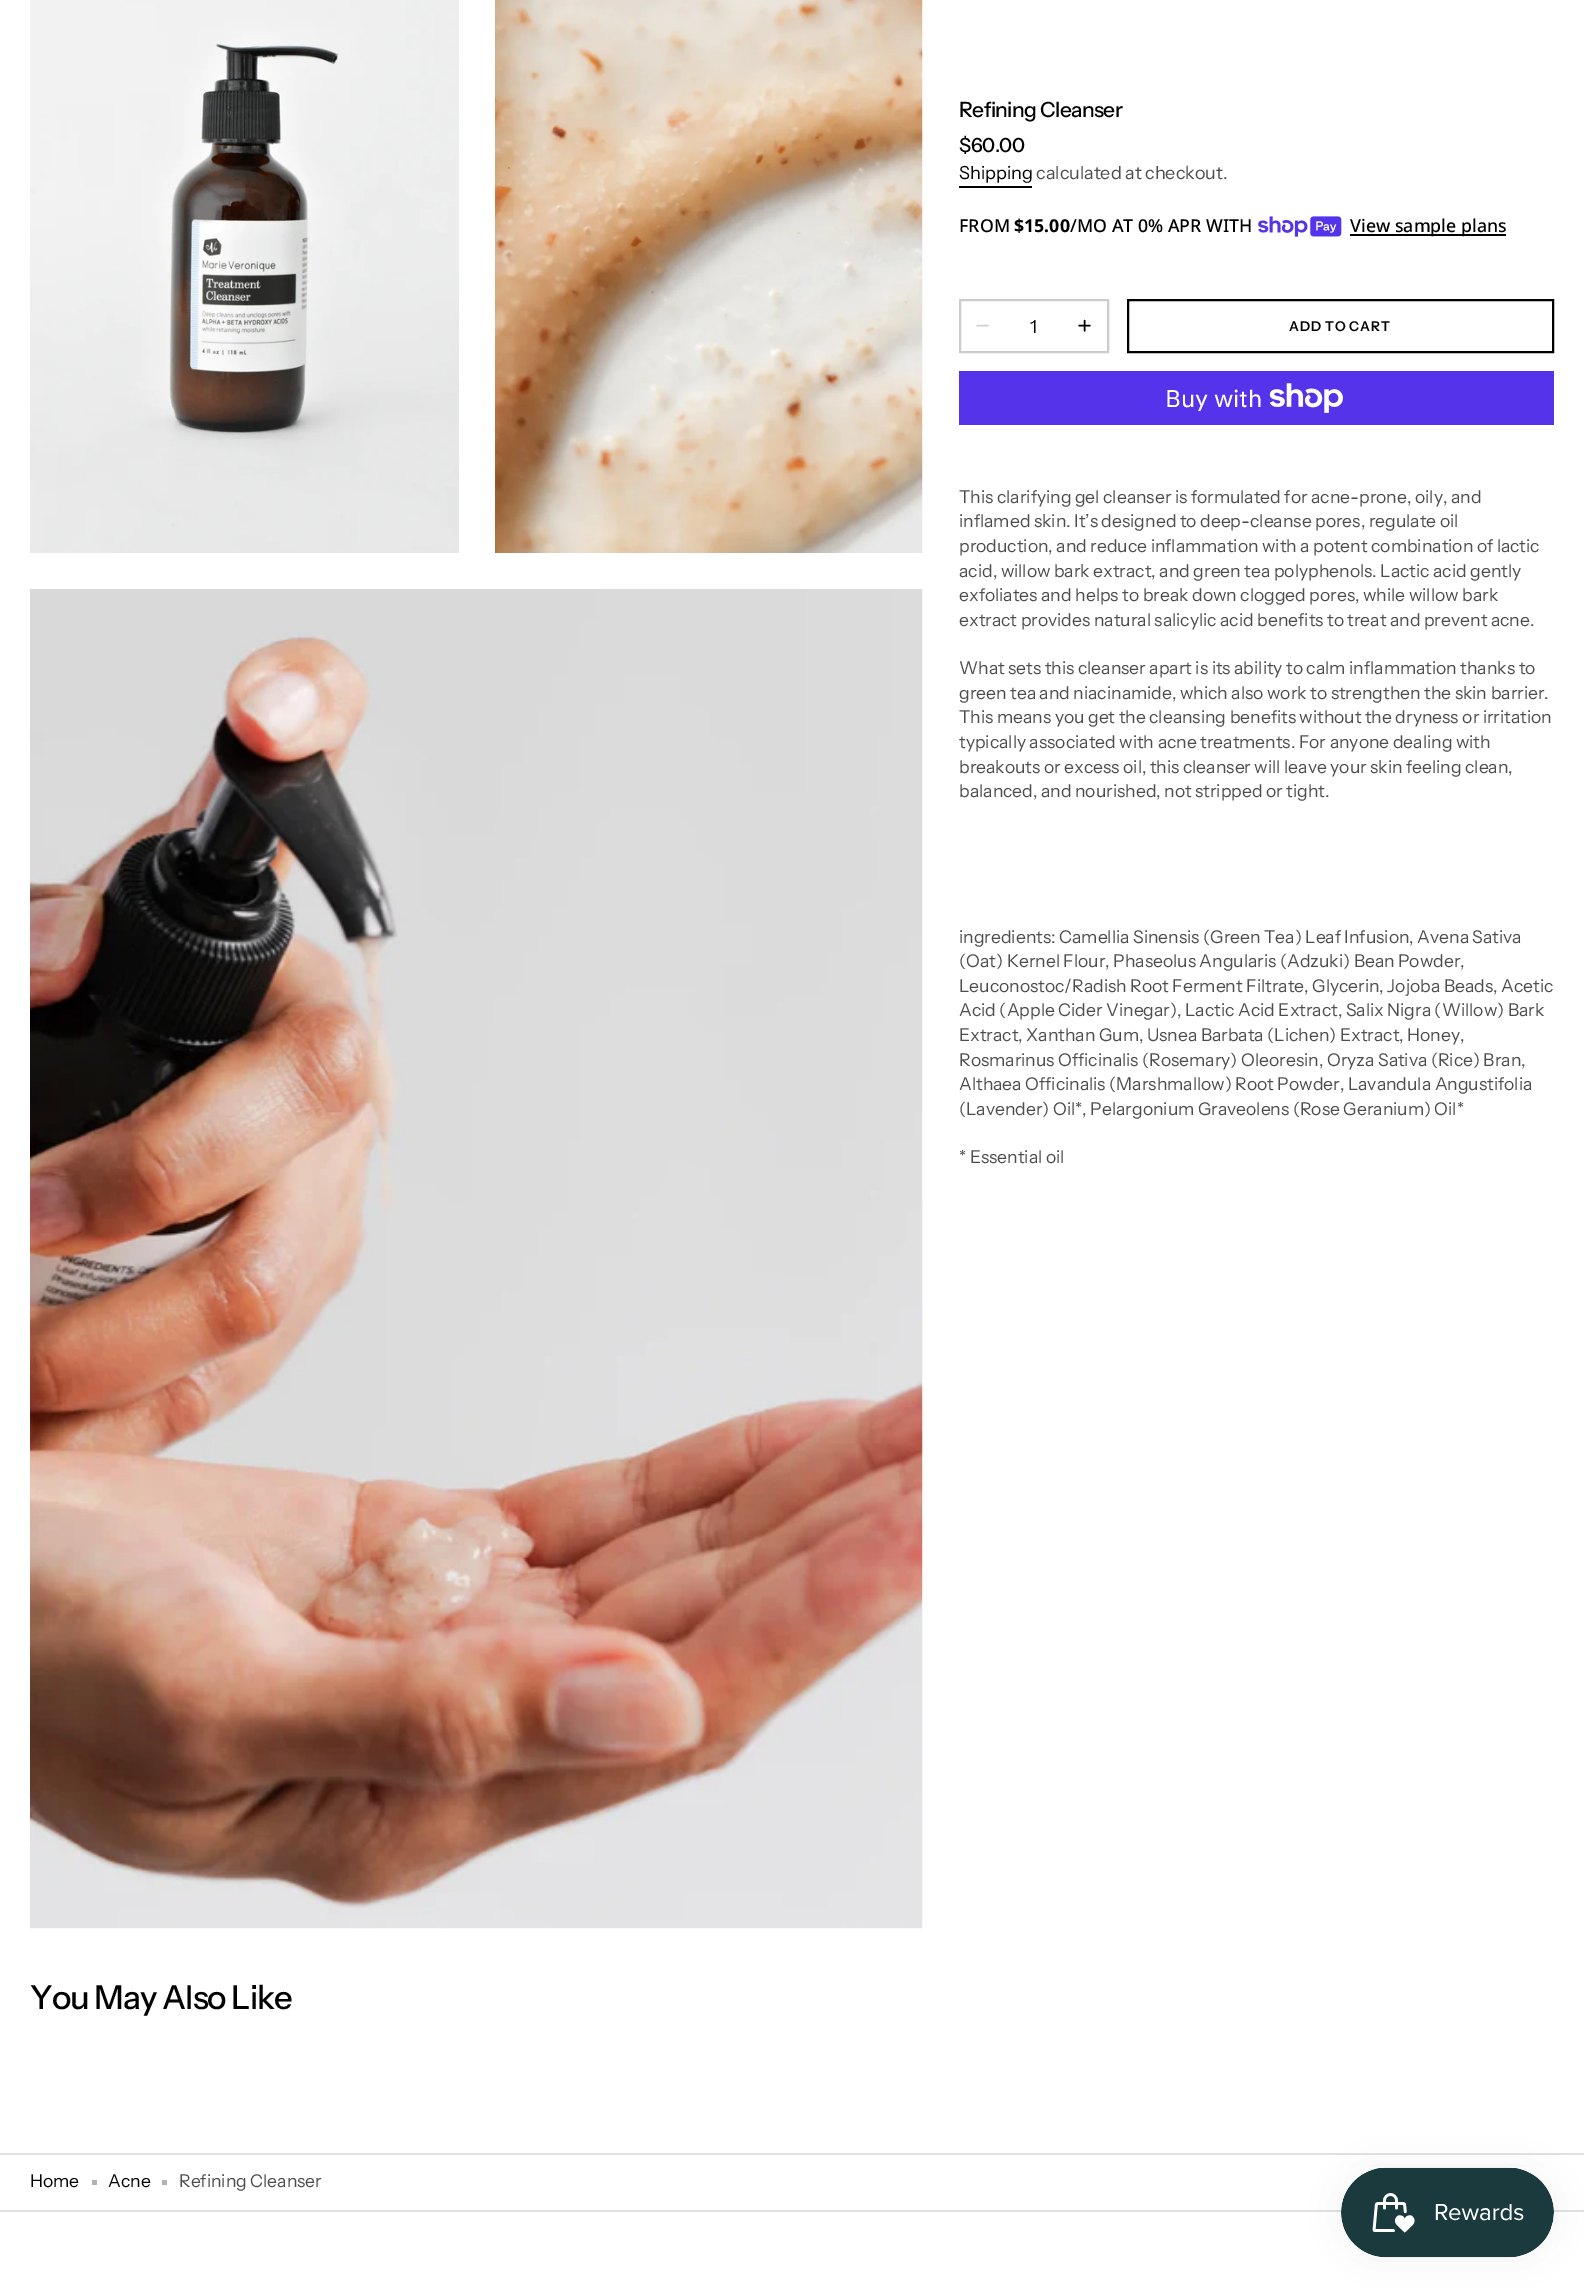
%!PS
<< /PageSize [1584 2287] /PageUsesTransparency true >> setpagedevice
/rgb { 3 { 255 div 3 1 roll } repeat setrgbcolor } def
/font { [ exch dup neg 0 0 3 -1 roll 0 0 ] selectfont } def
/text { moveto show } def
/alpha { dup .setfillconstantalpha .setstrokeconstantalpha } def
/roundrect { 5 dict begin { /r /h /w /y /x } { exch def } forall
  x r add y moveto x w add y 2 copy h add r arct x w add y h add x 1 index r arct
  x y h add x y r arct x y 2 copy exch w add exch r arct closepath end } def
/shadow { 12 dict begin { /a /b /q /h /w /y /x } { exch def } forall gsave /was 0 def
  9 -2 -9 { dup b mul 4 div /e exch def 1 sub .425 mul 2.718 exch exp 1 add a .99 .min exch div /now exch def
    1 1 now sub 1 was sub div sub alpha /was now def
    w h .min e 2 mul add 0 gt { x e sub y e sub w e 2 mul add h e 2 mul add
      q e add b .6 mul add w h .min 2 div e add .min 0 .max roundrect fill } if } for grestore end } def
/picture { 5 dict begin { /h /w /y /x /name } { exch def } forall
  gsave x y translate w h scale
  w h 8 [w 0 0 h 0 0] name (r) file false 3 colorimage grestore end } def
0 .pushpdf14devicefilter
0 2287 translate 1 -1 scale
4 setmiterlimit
255 255 255 rgb
0 0 1584 2287 rectfill
(img_01.rgb) 30 0 429 553 picture
(img_02.rgb) 495 0 428 553 picture
(img_03.rgb) 30 589 893 1340 picture
0 0 0 rgb
959 186 73 2 rectfill
(img_04.rgb) 1258 216 84 21 picture
1350 234 156 2 rectfill
204 204 204 rgb
2 setlinewidth
960 300 148 52 rectstroke
209 209 209 rgb
1.4 setlinewidth
1 setlinecap
988 325.5 moveto -11 0 rlineto stroke
0 0 0 rgb
1090 325.5 moveto -11 0 rlineto 1084.5 331 moveto 0 -10.5 rlineto stroke
2 setlinewidth
0 setlinecap
1128 300 425 52 rectstroke
84 51 235 rgb
959 371 595 54 rectfill
(img_05.rgb) 1269 383 74 30 picture
225 225 225 rgb
0 2153 1584 2 rectfill
179 179 179 rgb
92 2180 5 5 rectfill
162 2180 5 5 rectfill
225 225 225 rgb
0 2210 1584 2 rectfill
0 0 0 rgb
1341 2168 213 90 45 19 0.05 shadow
(img_06.rgb) 1341 2167 213 91 picture
/InstrumentSans-Medium 21 font
959 117 moveto -0.6 0 (Refining Cleanser) ashow
/InstrumentSans-Medium 19.5 font
959 152 moveto -0.5 0 ($60.00) ashow
/InstrumentSans-Regular 18 font
(Shipping) 959 179 text
77 77 77 rgb
(calculated at checkout.) 1036 179 text
/NotoSans-Medium 17.75 font
0 0 0 rgb
(FROM) 959 232 text
/NotoSans-Bold 17.75 font
($15.00) 1014 232 text
/NotoSans-Medium 17.75 font
(/MO AT 0% APR WITH) 1070 232 text
(View sample plans) 1350 232 text
/InstrumentSans-Regular 18 font
(1) 1030 333 text
/InstrumentSans-SemiBold 13.5 font
1289 331 moveto 0.75 0 (ADD TO CART) ashow
/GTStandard-Regular 24 font
255 255 255 rgb
(Buy with) 1165 407 text
/InstrumentSans-Regular 17.55 font
77 77 77 rgb
(This clarifying gel cleanser is formulated for acne-prone, oily, and) 959 503 text
(inflamed skin. It’s designed to deep-cleanse pores, regulate oil) 959 527 text
(production, and reduce inflammation with a potent combination of lactic) 959 552 text
(acid, willow bark extract, and green tea polyphenols. Lactic acid gently) 959 577 text
(exfoliates and helps to break down clogged pores, while willow bark) 959 601 text
(extract provides natural salicylic acid benefits to treat and prevent acne.) 959 626 text
(What sets this cleanser apart is its ability to calm inflammation thanks to) 959 674 text
(green tea and niacinamide, which also work to strengthen the skin barrier.) 959 699 text
(This means you get the cleansing benefits without the dryness or irritation) 959 723 text
(typically associated with acne treatments. For anyone dealing with) 959 748 text
(breakouts or excess oil, this cleanser will leave your skin feeling clean,) 959 773 text
(balanced, and nourished, not stripped or tight.) 959 797 text
(ingredients: Camellia Sinensis \(Green Tea\) Leaf Infusion, Avena Sativa) 959 943 text
(\(Oat\) Kernel Flour, Phaseolus Angularis \(Adzuki\) Bean Powder,) 959 967 text
(Leuconostoc/Radish Root Ferment Filtrate, Glycerin, Jojoba Beads, Acetic) 959 992 text
(Acid \(Apple Cider Vinegar\), Lactic Acid Extract, Salix Nigra \(Willow\) Bark) 959 1016 text
(Extract, Xanthan Gum, Usnea Barbata \(Lichen\) Extract, Honey,) 959 1041 text
(Rosmarinus Officinalis \(Rosemary\) Oleoresin, Oryza Sativa \(Rice\) Bran,) 959 1066 text
(Althaea Officinalis \(Marshmallow\) Root Powder, Lavandula Angustifolia) 959 1090 text
(\(Lavender\) Oil*, Pelargonium Graveolens \(Rose Geranium\) Oil*) 959 1115 text
(* Essential oil) 959 1163 text
/InstrumentSans-Medium 33 font
0 0 0 rgb
30 2009 moveto -1 0 (You May Also Like) ashow
/InstrumentSans-Regular 17.55 font
(Home) 30 2187 text
(Acne) 108 2187 text
77 77 77 rgb
(Refining Cleanser) 179 2187 text
.poppdf14devicefilter showpage
